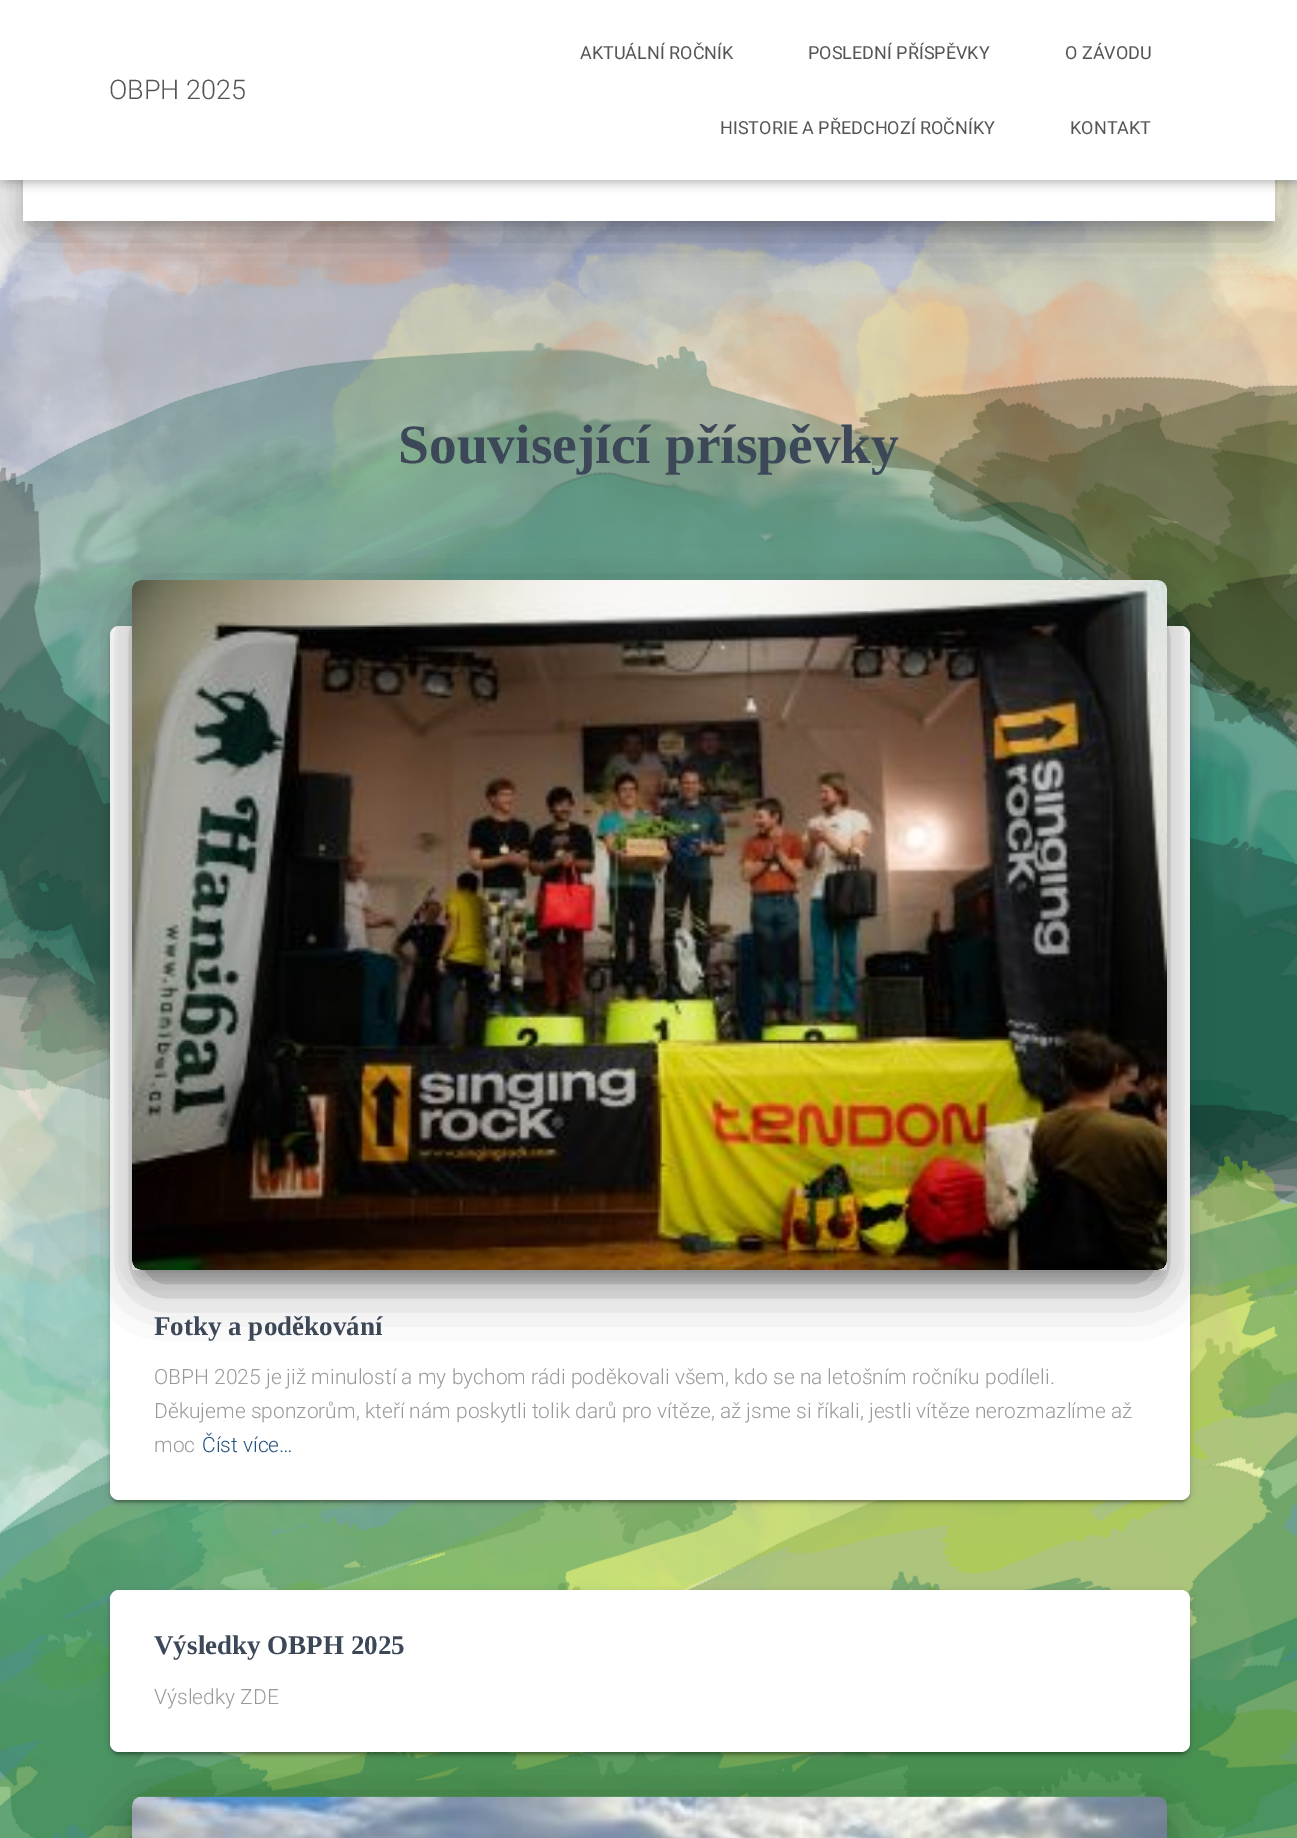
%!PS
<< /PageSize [1297 1838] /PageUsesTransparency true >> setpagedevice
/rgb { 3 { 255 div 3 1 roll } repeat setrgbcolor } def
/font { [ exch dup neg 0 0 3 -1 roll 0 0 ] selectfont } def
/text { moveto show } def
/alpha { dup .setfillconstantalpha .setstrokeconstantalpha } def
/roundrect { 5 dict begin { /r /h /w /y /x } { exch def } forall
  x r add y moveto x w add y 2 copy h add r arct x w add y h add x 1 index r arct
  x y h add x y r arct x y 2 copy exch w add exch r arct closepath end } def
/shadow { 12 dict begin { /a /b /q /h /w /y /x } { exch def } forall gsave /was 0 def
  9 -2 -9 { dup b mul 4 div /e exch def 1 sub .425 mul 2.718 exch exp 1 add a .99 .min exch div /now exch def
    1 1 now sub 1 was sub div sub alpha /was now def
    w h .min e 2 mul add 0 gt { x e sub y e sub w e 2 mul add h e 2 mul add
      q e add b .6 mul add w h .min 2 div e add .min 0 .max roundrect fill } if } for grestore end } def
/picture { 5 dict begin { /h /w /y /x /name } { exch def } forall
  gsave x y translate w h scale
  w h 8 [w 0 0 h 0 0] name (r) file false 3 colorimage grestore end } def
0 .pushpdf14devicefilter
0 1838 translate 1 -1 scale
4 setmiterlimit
255 255 255 rgb
0 0 1297 1838 rectfill
(img_01.rgb) 0 180 1297 1658 picture
0 0 0 rgb
30 -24 1238 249 1.5 7.5 0.2 shadow
15 -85 1268 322 17 22.5 0.12 shadow
20 -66 1258 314 12 18 0.14 shadow
255 255 255 rgb
23 180 1252 41 rectfill
0 0 0 rgb
3 9 1292 174 0 4 0.1 shadow
0 2 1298 180 0 7.5 0.12 shadow
9 11 1280 162 0 7.5 0.42 shadow
255 255 255 rgb
0 0 1297 180 rectfill
0 0 0 rgb
110 627 1080 875 9 4 0.12 shadow
113 633 1074 869 6 1 0.2 shadow
110 629 1080 874 9 1.5 0.14 shadow
255 255 255 rgb
110 626 1080 874 9 roundrect fill
0 0 0 rgb
140 600 1020 675 1.5 7.5 0.2 shadow
132 587 1035 690 9 19 0.12 shadow
150 623 999 654 0 28.5 0.56 shadow
(img_02.rgb) 132 580 1035 690 picture
110 1592 1080 162 9 4 0.12 shadow
113 1598 1074 156 6 1 0.2 shadow
110 1593 1080 162 9 1.5 0.14 shadow
255 255 255 rgb
110 1590 1080 162 9 roundrect fill
0 0 0 rgb
140 1817 1020 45 1.5 7.5 0.2 shadow
132 1803 1035 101 9 19 0.12 shadow
150 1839 999 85 0 28.5 0.56 shadow
(img_03.rgb) 132 1796 1035 42 picture
/Roboto-Light 27 font
85 85 85 rgb
(OBPH 2025) 109 99 text
/Roboto-Regular 18 font
(AKTUÁLNÍ ROČNÍK) 580 59 text
(POSLEDNÍ PŘÍSPĚVKY) 808 59 text
(O ZÁVODU) 1065 59 text
(HISTORIE A PŘEDCHOZÍ ROČNÍKY) 720 134 text
(KONTAKT) 1070 134 text
/LiberationSerif-Bold 55.5 font
60 72 88 rgb
(Související příspěvky) 398 463 text
/LiberationSerif-Bold 27 font
(Fotky a poděkování) 154 1335 text
/Roboto-Light 21 font
153 153 153 rgb
(OBPH 2025 je již minulostí a my bychom rádi poděkovali všem, kdo se na letošním ročníku podíleli.) 154 1384 text
(Děkujeme sponzorům, kteří nám poskytli tolik darů pro vítěze, až jsme si říkali, jestli vítěze nerozmazlíme až) 154 1418 text
(moc) 154 1452 text
35 82 124 rgb
(Číst více…) 202 1452 text
/LiberationSerif-Bold 27 font
60 72 88 rgb
(Výsledky OBPH 2025) 154 1654 text
/Roboto-Light 21 font
153 153 153 rgb
(Výsledky ZDE) 154 1704 text
.poppdf14devicefilter showpage
